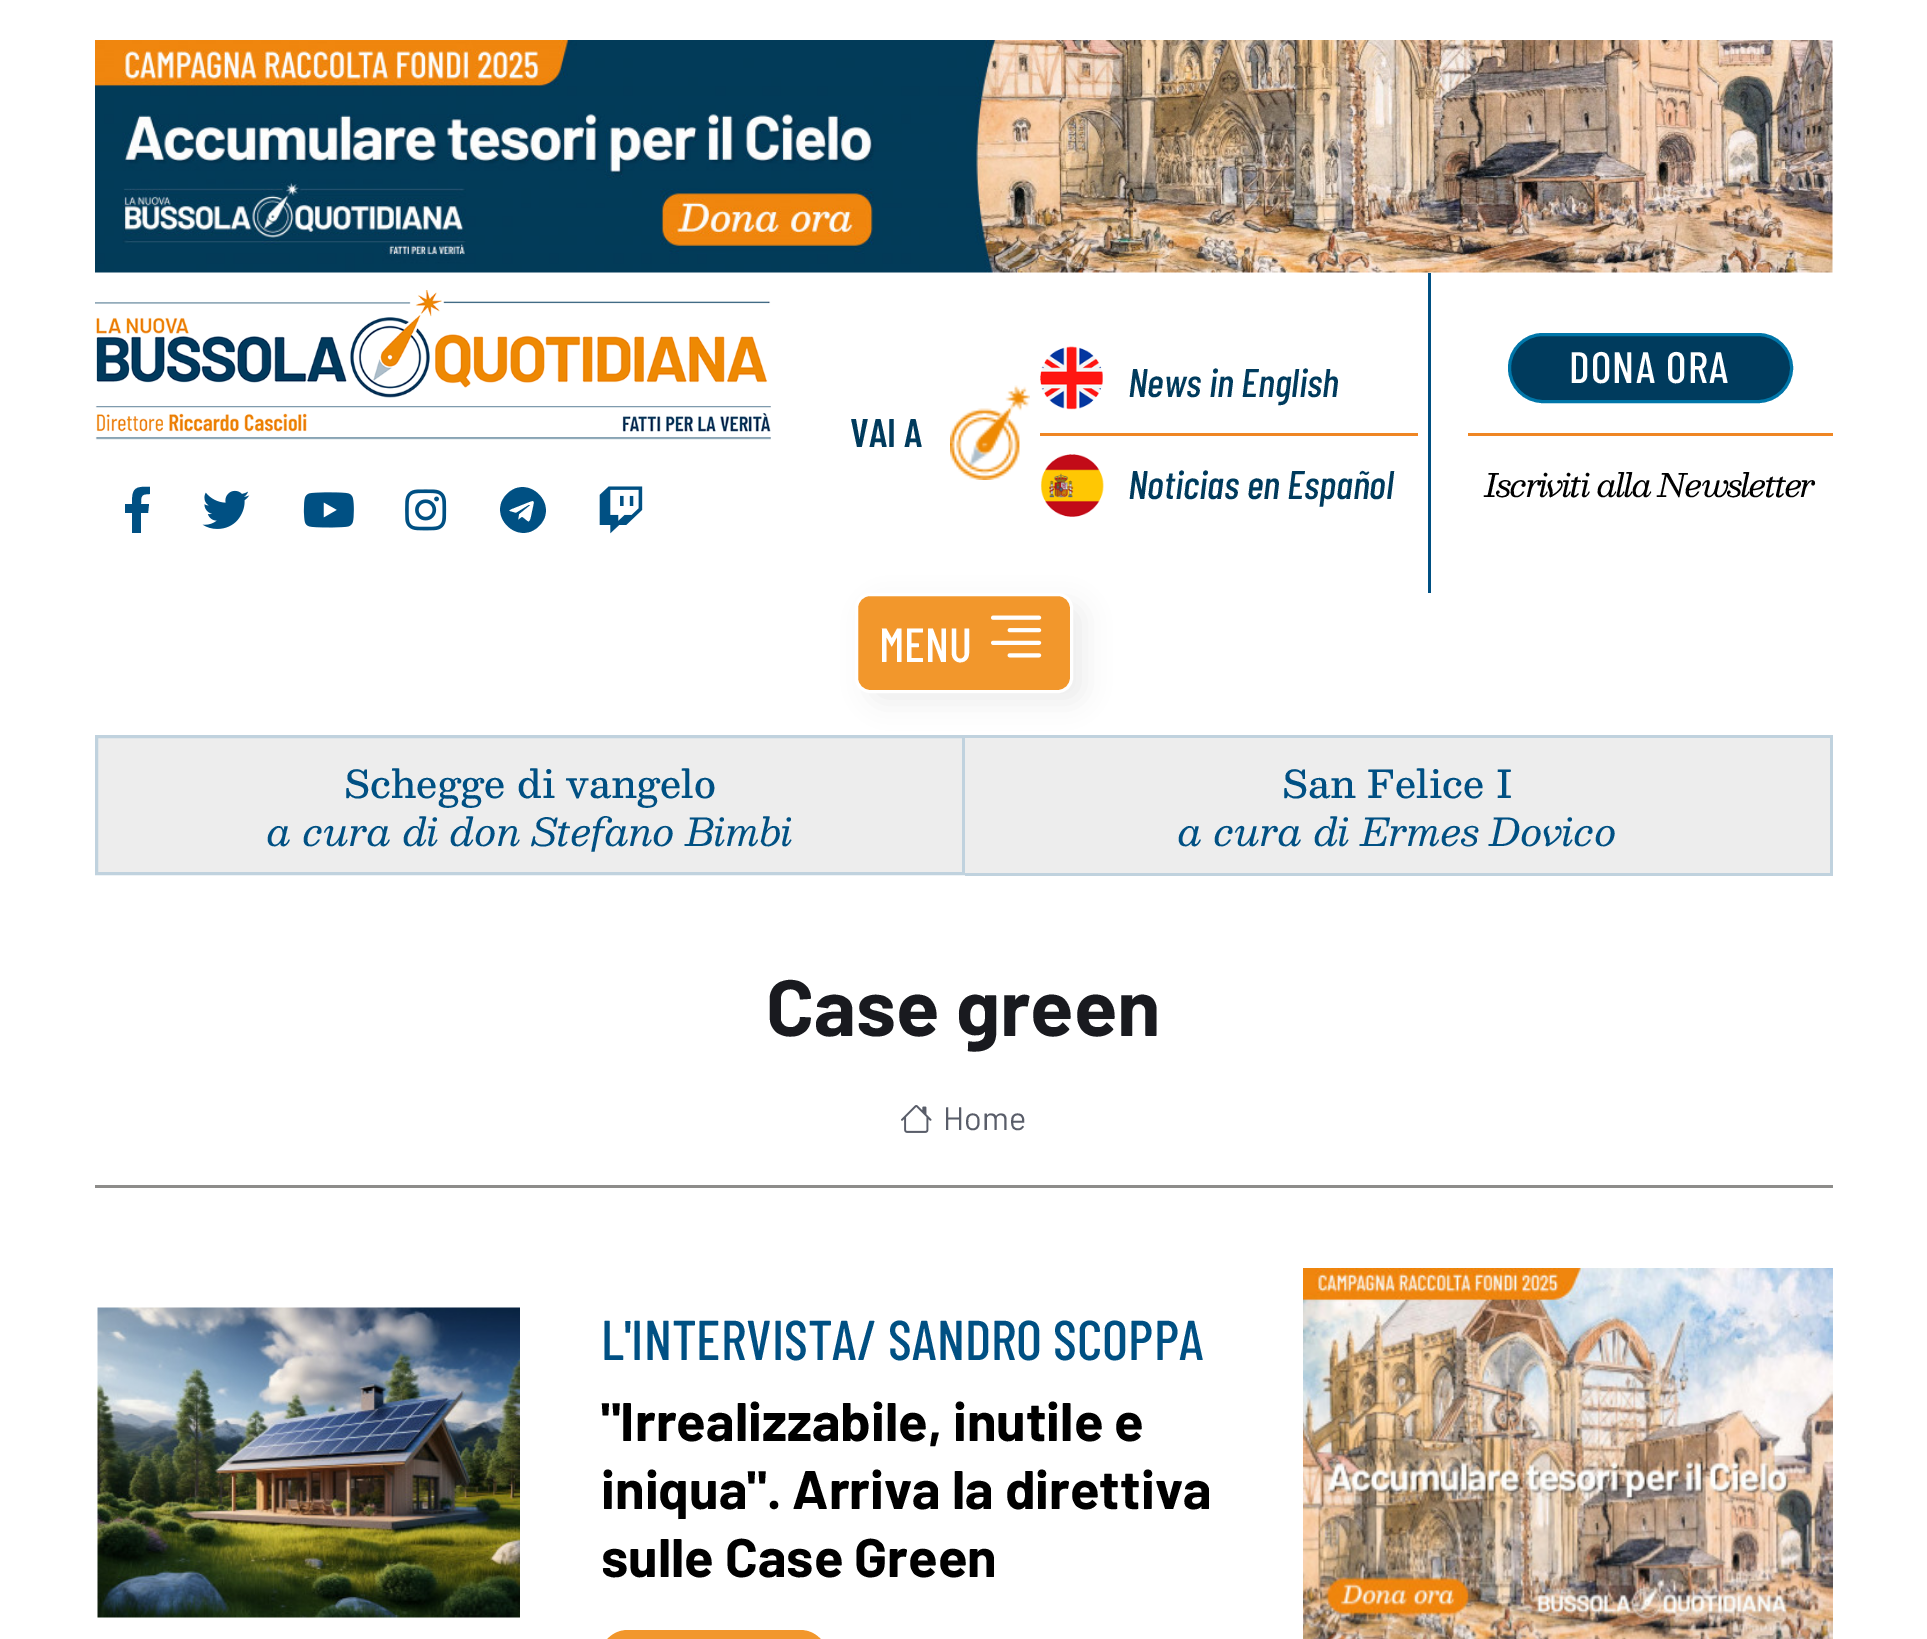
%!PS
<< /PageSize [1927 1639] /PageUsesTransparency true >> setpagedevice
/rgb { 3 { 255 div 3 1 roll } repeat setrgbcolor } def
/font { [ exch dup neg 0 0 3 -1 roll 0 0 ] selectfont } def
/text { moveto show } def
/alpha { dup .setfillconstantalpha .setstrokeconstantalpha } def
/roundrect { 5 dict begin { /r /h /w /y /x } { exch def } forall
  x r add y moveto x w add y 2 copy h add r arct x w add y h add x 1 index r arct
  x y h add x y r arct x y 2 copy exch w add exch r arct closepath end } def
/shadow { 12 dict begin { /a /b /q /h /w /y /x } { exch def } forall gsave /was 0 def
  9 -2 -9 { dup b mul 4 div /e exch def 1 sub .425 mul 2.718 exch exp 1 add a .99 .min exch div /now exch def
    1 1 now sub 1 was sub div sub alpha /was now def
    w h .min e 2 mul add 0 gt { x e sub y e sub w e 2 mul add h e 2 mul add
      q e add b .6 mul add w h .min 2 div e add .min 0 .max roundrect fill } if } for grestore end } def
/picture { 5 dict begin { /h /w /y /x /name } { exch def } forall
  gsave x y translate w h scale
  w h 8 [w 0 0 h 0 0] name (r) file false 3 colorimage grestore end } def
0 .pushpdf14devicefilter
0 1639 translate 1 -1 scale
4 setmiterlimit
255 255 255 rgb
0 0 1927 1639 rectfill
(img_01.rgb) 95 40 1738 233 picture
(img_02.rgb) 95 290 676 150 picture
0 80 131 rgb
148 513 moveto -7 0 rlineto 0 20 rlineto -9 0 rlineto 0 -20 rlineto -7 0 rlineto 0 -9 rlineto 7 0 rlineto 0 -15 2 -18 18 -17 rcurveto 0 7 rlineto -9 0 -9 2 -9 10 rcurveto 8 0 rlineto closepath fill
(img_03.rgb) 202 490 48 39 picture
(img_04.rgb) 303 492 51 36 picture
(img_05.rgb) 405 489 42 42 picture
507 494 moveto 21 -21 53 11 32 32 rcurveto -21 21 -53 -11 -32 -32 rcurveto closepath 534 503 moveto 0 -4 -4 -1 -5 -1 rcurveto -15 6 rlineto -3 1 -5 2 -5 3 rcurveto 7 2 rlineto 13 -8 rlineto 1 0 rlineto -11 9 rlineto -1 6 rlineto 4 -3 rlineto 6 4 7 8 9 0 rcurveto closepath fill
(img_06.rgb) 599 486 44 48 picture
1428 273 3 320 rectfill
(img_07.rgb) 1040 346 63 64 picture
(img_08.rgb) 950 385 80 95 picture
239 134 35 rgb
1040 433 378 3 rectfill
(img_09.rgb) 1040 454 64 63 picture
0 59 93 rgb
1509.5 334.5 282 67 33.5 roundrect gsave fill grestore
0 118 169 rgb
3 setlinewidth
stroke
239 134 35 rgb
1468 433 365 3 rectfill
237 237 237 rgb
96.5 736.5 moveto 867 0 rlineto 0 137 rlineto -867 0 rlineto closepath gsave fill grestore
192 210 222 rgb
stroke
237 237 237 rgb
965 738 865 135 rectfill
192 210 222 rgb
965 735 868 3 rectfill
237 237 237 rgb
868 603 217 100 15 12.5 1 shadow
242 151 44 rgb
856.5 594.5 215 97 13.5 roundrect gsave fill grestore
255 255 255 rgb
stroke
(img_10.rgb) 991 615 51 43 picture
192 210 222 rgb
1830 735 3 140 rectfill
965 873 868 3 rectfill
141 140 138 rgb
95 1185 1738 3 rectfill
(img_11.rgb) 901 1105 31 28 picture
(img_12.rgb) 97 1307 423 311 picture
242 151 44 rgb
600 1630 228 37 28 roundrect fill
(img_13.rgb) 1303 1268 530 371 picture
/BarlowCondensed-MediumItalic 40 font
0 59 93 rgb
(News in English) 1128 397 text
/BarlowCondensed-SemiBold 40 font
(VAI A) 850 447 text
/BarlowCondensed-MediumItalic 40 font
(Noticias en Español) 1128 499 text
/BarlowCondensed-Medium 44 font
255 255 255 rgb
1569 383 moveto 1.25 0 (DONA ORA) ashow
/Besley-Italic 32 font
0 0 0 rgb
1485 497 moveto -1.6 0 (Iscriviti alla Newsletter) ashow
/BarlowCondensed-Medium 48 font
255 255 255 rgb
(MENU) 879 662 text
/Besley-Medium 38 font
0 80 131 rgb
(Schegge di vangelo) 344 798 text
/Besley-Italic 38 font
(a cura di don Stefano Bimbi) 267 846 text
/Besley-Medium 38 font
(San Felice I) 1282 798 text
/Besley-Italic 38 font
(a cura di Ermes Dovico) 1178 846 text
/Barlow-Bold 79.5 font
25 26 31 rgb
(Case green) 766 1036 text
/Barlow-Regular 32.5 font
89 93 105 rgb
(Home) 943 1130 text
/BarlowCondensed-Medium 56 font
0 80 131 rgb
(L'INTERVISTA/ SANDRO SCOPPA) 601 1360 text
/Barlow-Bold 54.25 font
0 0 0 rgb
("Irrealizzabile, inutile e) 601 1441 text
(iniqua". Arriva la direttiva) 601 1509 text
(sulle Case Green) 601 1577 text
.poppdf14devicefilter showpage
